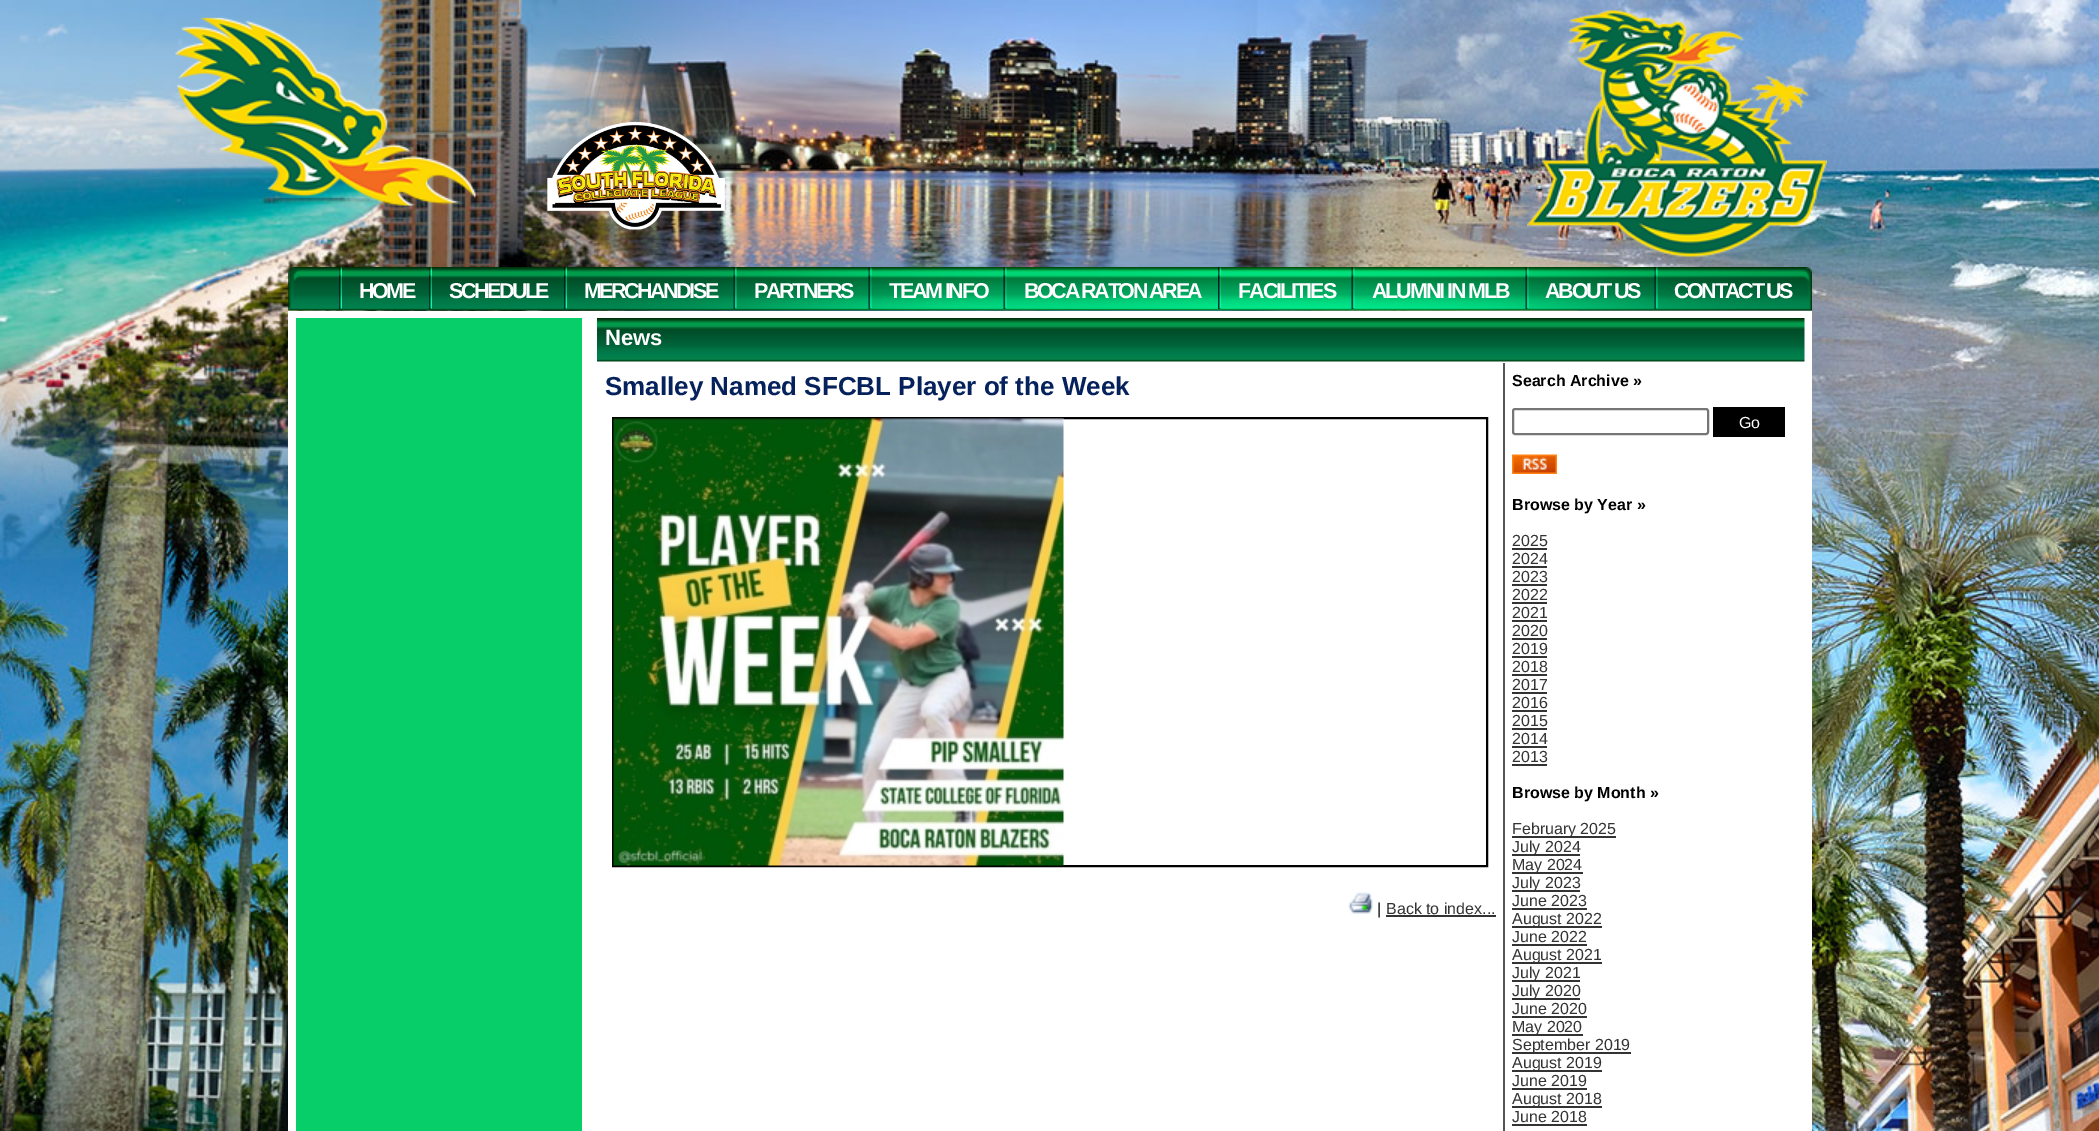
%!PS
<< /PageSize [2099 1131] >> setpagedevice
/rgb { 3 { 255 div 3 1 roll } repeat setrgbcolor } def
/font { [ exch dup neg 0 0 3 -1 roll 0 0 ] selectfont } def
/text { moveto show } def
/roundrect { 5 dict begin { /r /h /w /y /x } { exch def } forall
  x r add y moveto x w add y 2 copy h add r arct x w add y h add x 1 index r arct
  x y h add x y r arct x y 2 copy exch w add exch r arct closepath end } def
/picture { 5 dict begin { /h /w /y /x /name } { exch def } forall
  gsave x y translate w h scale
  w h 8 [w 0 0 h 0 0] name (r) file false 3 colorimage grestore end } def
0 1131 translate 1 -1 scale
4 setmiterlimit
255 255 255 rgb
0 0 2099 1131 rectfill
(img_01.rgb) 0 0 2099 1131 picture
(img_02.rgb) 175 17 301 189 picture
(img_03.rgb) 547 121 178 109 picture
(img_04.rgb) 1527 10 300 247 picture
(img_05.rgb) 288 267 1524 44 picture
(img_06.rgb) 339 267 3 42 picture
(img_06.rgb) 429 267 3 42 picture
(img_06.rgb) 564 267 3 42 picture
(img_07.rgb) 733 267 4 42 picture
(img_08.rgb) 868 267 4 42 picture
(img_09.rgb) 1003 267 4 42 picture
(img_06.rgb) 1218 267 3 42 picture
(img_10.rgb) 1351 267 4 42 picture
(img_11.rgb) 1525 267 4 42 picture
(img_12.rgb) 1654 267 4 42 picture
288 311 1524 820 rectfill
7 206 105 rgb
296 318 286 813 rectfill
(img_13.rgb) 597 318 1208 44 picture
0 0 0 rgb
2 setlinewidth
613 418 874 448 rectstroke
(img_14.rgb) 613 418 451 448 picture
(img_15.rgb) 1348 892 25 22 picture
51 51 51 rgb
1386 915 110 2 rectfill
85 85 85 rgb
1503 363 2 768 rectfill
118 118 118 rgb
1513 409 195 25 2 roundrect stroke
0 0 0 rgb
1713 407 72 30 rectfill
(img_16.rgb) 1512 454 45 20 picture
51 51 51 rgb
1512 548 35 2 rectfill
1512 566 35 2 rectfill
1512 584 35 2 rectfill
1512 602 35 2 rectfill
1512 620 35 2 rectfill
1512 638 35 2 rectfill
1512 656 35 2 rectfill
1512 674 35 2 rectfill
1512 692 35 2 rectfill
1512 710 35 2 rectfill
1512 728 35 2 rectfill
1512 746 35 2 rectfill
1512 764 35 2 rectfill
1512 836 104 2 rectfill
1512 854 68 2 rectfill
1512 872 71 2 rectfill
1512 890 68 2 rectfill
1512 908 75 2 rectfill
1512 926 90 2 rectfill
1512 944 75 2 rectfill
1512 962 90 2 rectfill
1512 980 68 2 rectfill
1512 998 68 2 rectfill
1512 1016 75 2 rectfill
1512 1034 71 2 rectfill
1512 1052 119 2 rectfill
1512 1070 90 2 rectfill
1512 1088 75 2 rectfill
1512 1106 90 2 rectfill
1512 1124 75 2 rectfill
/LiberationSans-Bold 21.5 font
255 255 255 rgb
359 298 moveto -2.5 0 (HOME) ashow
449 298 moveto -2.5 0 (SCHEDULE) ashow
584 298 moveto -2.5 0 (MERCHANDISE) ashow
754 298 moveto -2.5 0 (PARTNERS) ashow
889 298 moveto -2.25 0 (TEAM INFO) ashow
1024 298 moveto -2.4 0 (BOCA RATON AREA) ashow
1238 298 moveto -2 0 (FACILITIES) ashow
1372 298 moveto -2.1 0 (ALUMNI IN MLB) ashow
1545 298 moveto -2.25 0 (ABOUT US) ashow
1674 298 moveto -2.4 0 (CONTACT US) ashow
/LiberationSans-Bold 22 font
(News) 605 345 text
/LiberationSans-Bold 26 font
6 34 93 rgb
(Smalley Named SFCBL Player of the Week) 605 395 text
/LiberationSans-Regular 16 font
0 0 0 rgb
(|) 1377 914 text
51 51 51 rgb
(Back to index...) 1386 914 text
/LiberationSans-Bold 16 font
0 0 0 rgb
(Search Archive ») 1512 386 text
/LiberationSans-Regular 16 font
255 255 255 rgb
(Go) 1739 428 text
/LiberationSans-Bold 16 font
0 0 0 rgb
(Browse by Year ») 1512 510 text
/LiberationSans-Regular 16 font
51 51 51 rgb
(2025) 1512 546 text
(2024) 1512 564 text
(2023) 1512 582 text
(2022) 1512 600 text
(2021) 1512 618 text
(2020) 1512 636 text
(2019) 1512 654 text
(2018) 1512 672 text
(2017) 1512 690 text
(2016) 1512 708 text
(2015) 1512 726 text
(2014) 1512 744 text
(2013) 1512 762 text
/LiberationSans-Bold 16 font
0 0 0 rgb
(Browse by Month ») 1512 798 text
/LiberationSans-Regular 16 font
51 51 51 rgb
(February 2025) 1512 834 text
(July 2024) 1512 852 text
(May 2024) 1512 870 text
(July 2023) 1512 888 text
(June 2023) 1512 906 text
(August 2022) 1512 924 text
(June 2022) 1512 942 text
(August 2021) 1512 960 text
(July 2021) 1512 978 text
(July 2020) 1512 996 text
(June 2020) 1512 1014 text
(May 2020) 1512 1032 text
(September 2019) 1512 1050 text
(August 2019) 1512 1068 text
(June 2019) 1512 1086 text
(August 2018) 1512 1104 text
(June 2018) 1512 1122 text
showpage
